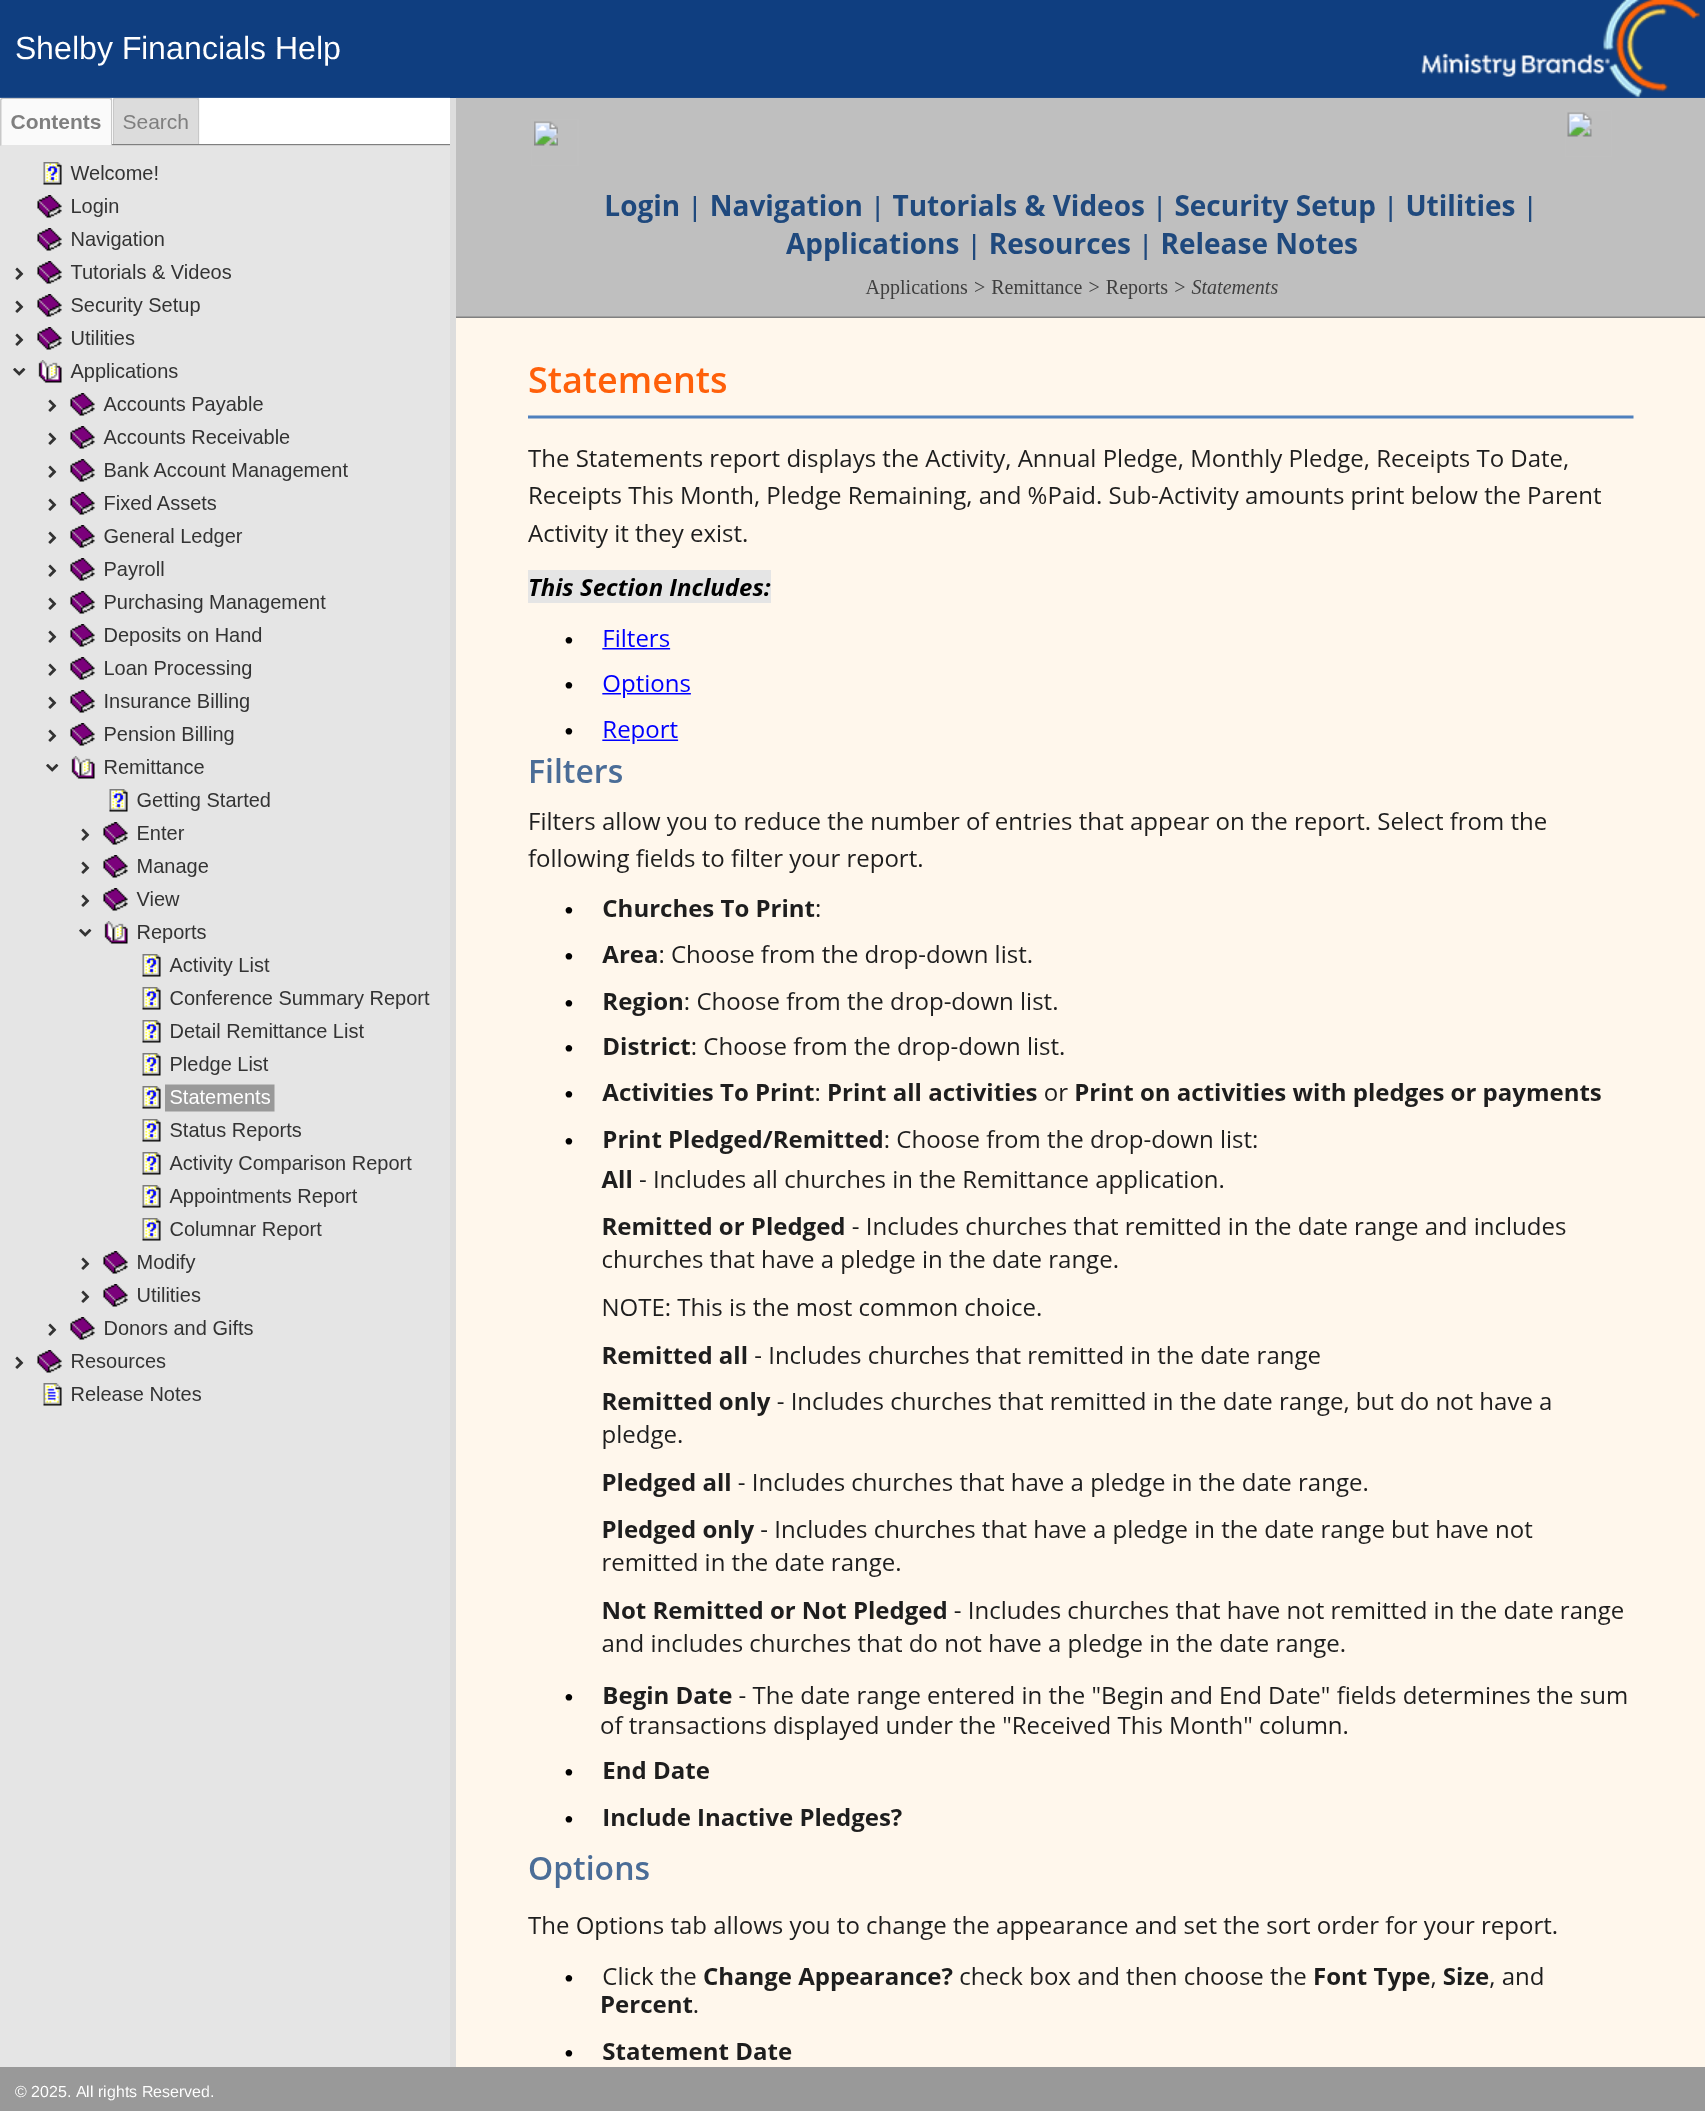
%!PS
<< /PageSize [1705 2111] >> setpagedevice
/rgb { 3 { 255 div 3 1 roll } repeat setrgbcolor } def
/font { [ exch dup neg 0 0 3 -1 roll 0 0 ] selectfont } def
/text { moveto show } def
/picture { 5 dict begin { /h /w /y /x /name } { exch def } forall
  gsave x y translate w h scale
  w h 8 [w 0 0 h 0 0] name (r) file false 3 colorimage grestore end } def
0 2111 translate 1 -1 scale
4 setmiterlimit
255 255 255 rgb
0 0 1705 2111 rectfill
15 62 128 rgb
0 0 1705 98 rectfill
(img_01.rgb) 1421 0 279 98 picture
(img_02.rgb) 0 97 450 1970 picture
(img_03.rgb) 456 97 1249 1970 picture
221 221 221 rgb
450 98 6 1969 rectfill
153 153 153 rgb
0 2067 1705 44 rectfill
/LiberationSans-Regular 32 font
255 255 255 rgb
(Shelby Financials Help) 15 59 text
/LiberationSans-Regular 16 font
(© 2025. All rights Reserved.) 15 2097 text
showpage
